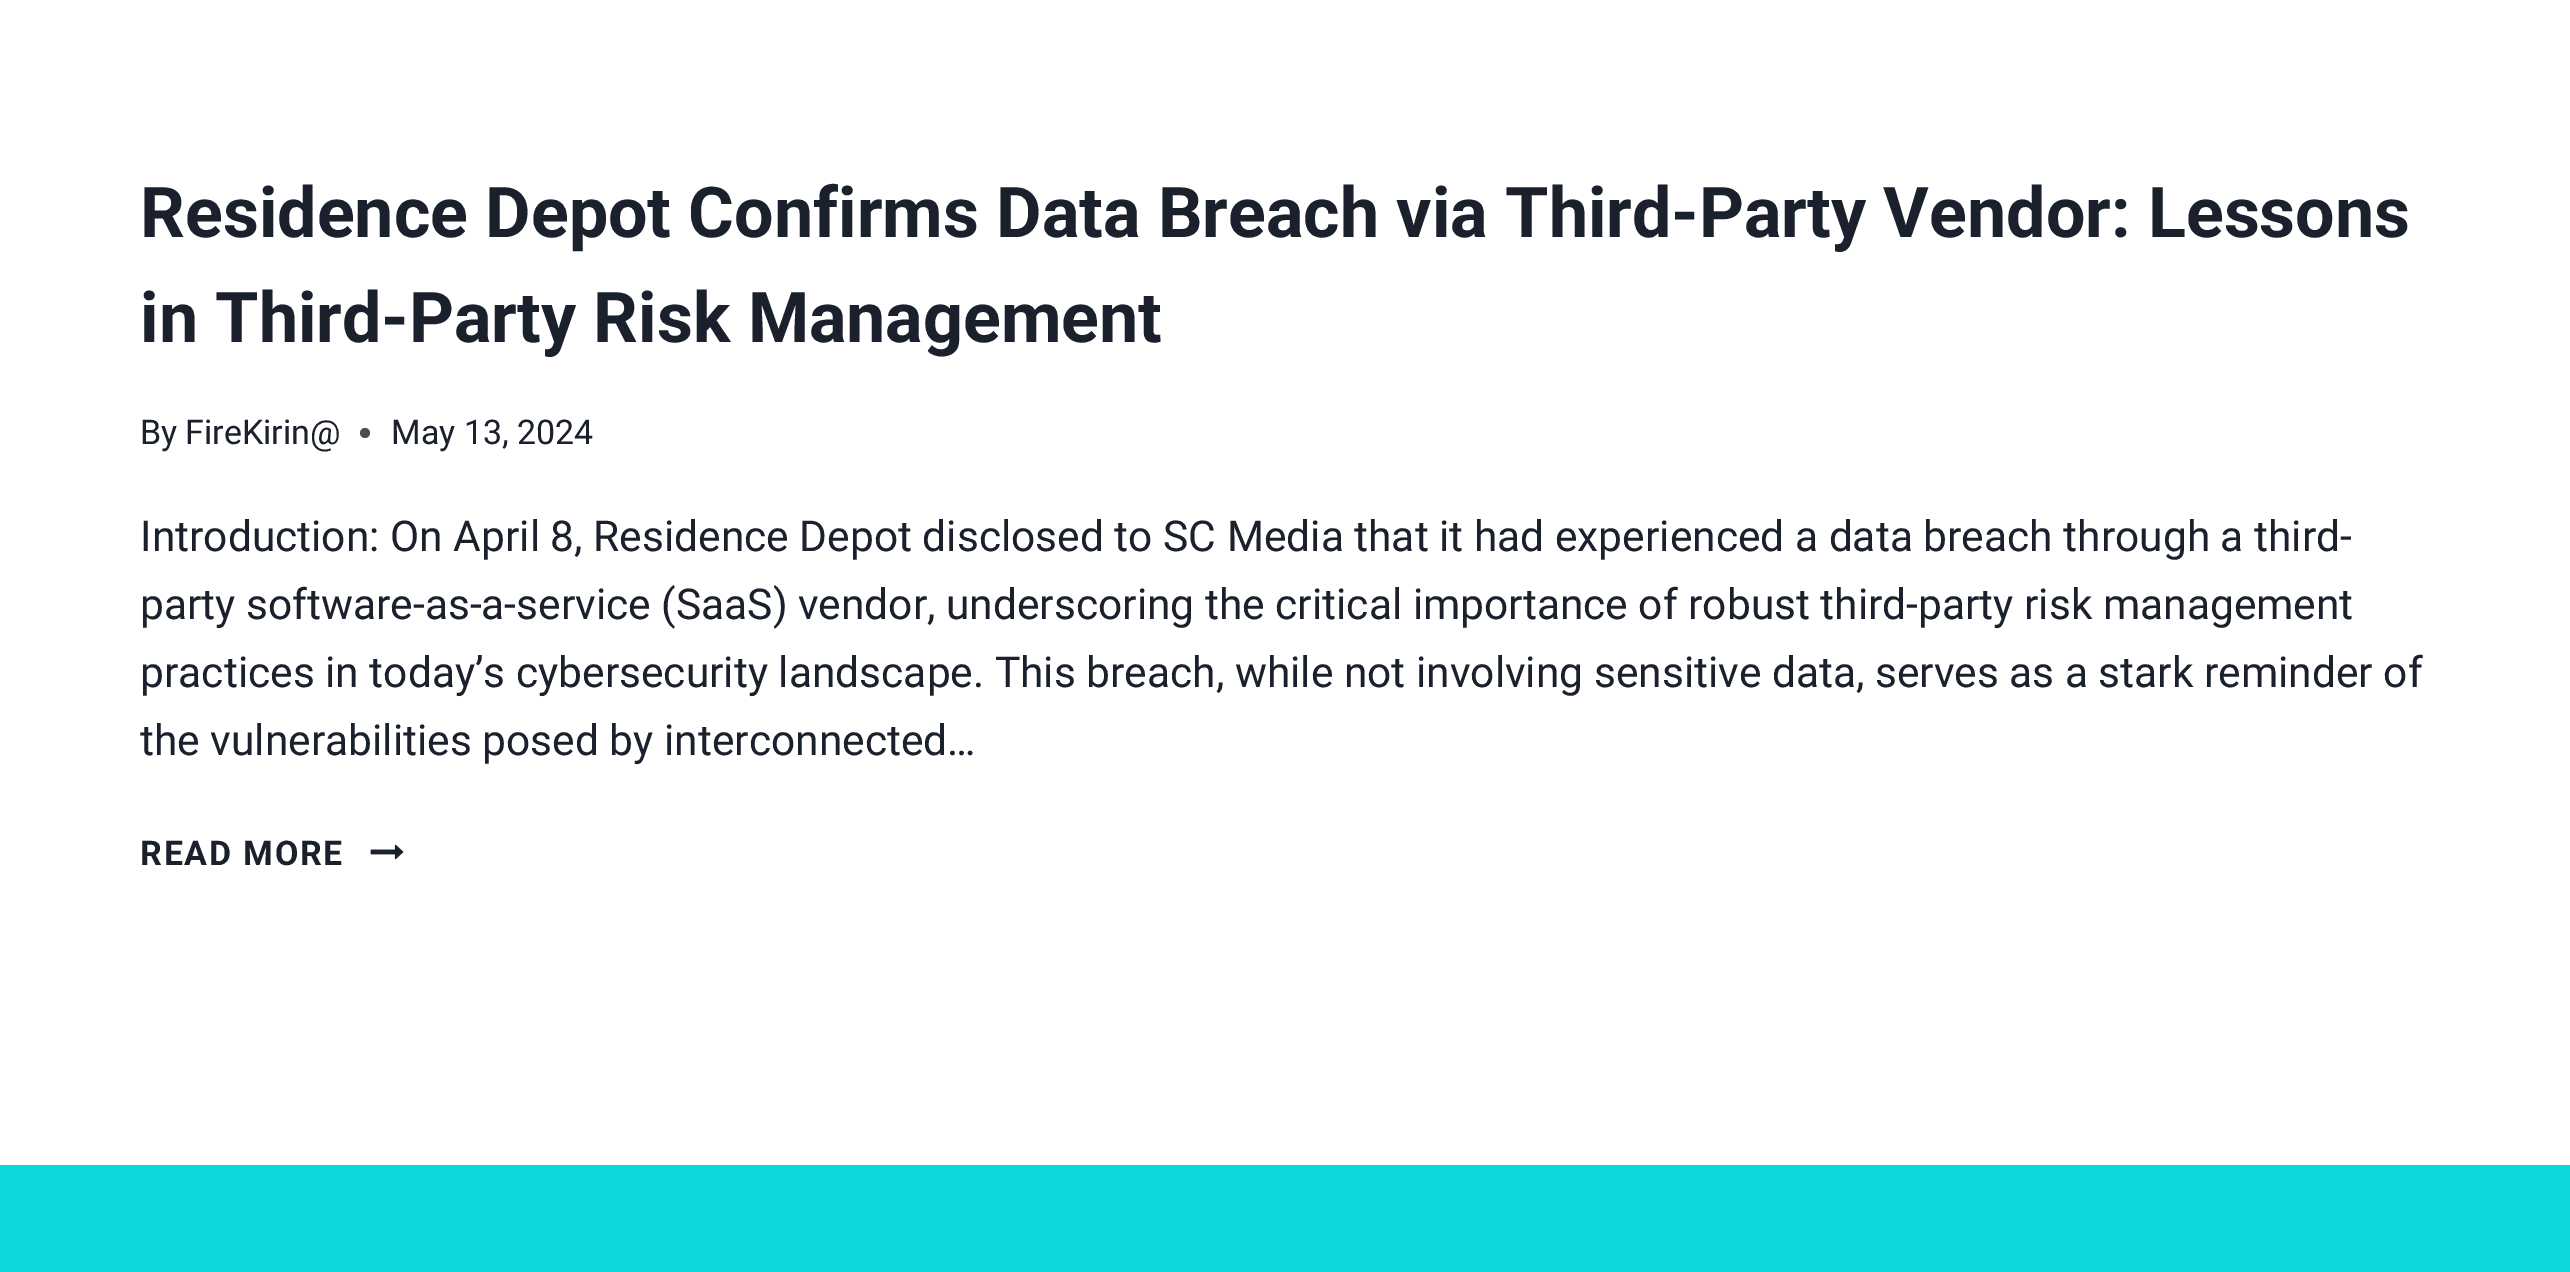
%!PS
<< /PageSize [2570 1272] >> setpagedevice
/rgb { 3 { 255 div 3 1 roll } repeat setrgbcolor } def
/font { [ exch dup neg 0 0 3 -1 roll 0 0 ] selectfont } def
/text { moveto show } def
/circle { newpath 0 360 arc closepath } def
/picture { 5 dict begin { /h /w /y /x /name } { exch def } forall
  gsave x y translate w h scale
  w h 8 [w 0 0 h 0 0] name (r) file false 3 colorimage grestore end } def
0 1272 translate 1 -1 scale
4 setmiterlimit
255 255 255 rgb
0 0 2570 1272 rectfill
72 77 86 rgb
365 433 5 circle fill
(img_01.rgb) 370 844 34 16 picture
13 216 219 rgb
0 1165 2570 107 rectfill
/Roboto-Bold 70 font
26 32 44 rgb
(Residence Depot Confirms Data Breach via Third-Party Vendor: Lessons) 140 237 text
(in Third-Party Risk Management) 140 342 text
/Roboto-Regular 34 font
(By) 140 444 text
(FireKirin@) 185 444 text
(May 13, 2024) 391 444 text
/Roboto-Regular 42.5 font
(Introduction: On April 8, Residence Depot disclosed to SC Media that it had experienced a data breach through a third-) 140 551 text
(party software-as-a-service \(SaaS\) vendor, underscoring the critical importance of robust third-party risk management) 140 619 text
(practices in today’s cybersecurity landscape. This breach, while not involving sensitive data, serves as a stark reminder of) 140 687 text
(the vulnerabilities posed by interconnected…) 140 755 text
/Roboto-Bold 34 font
140 865 moveto 1.75 0 (READ MORE) ashow
showpage
